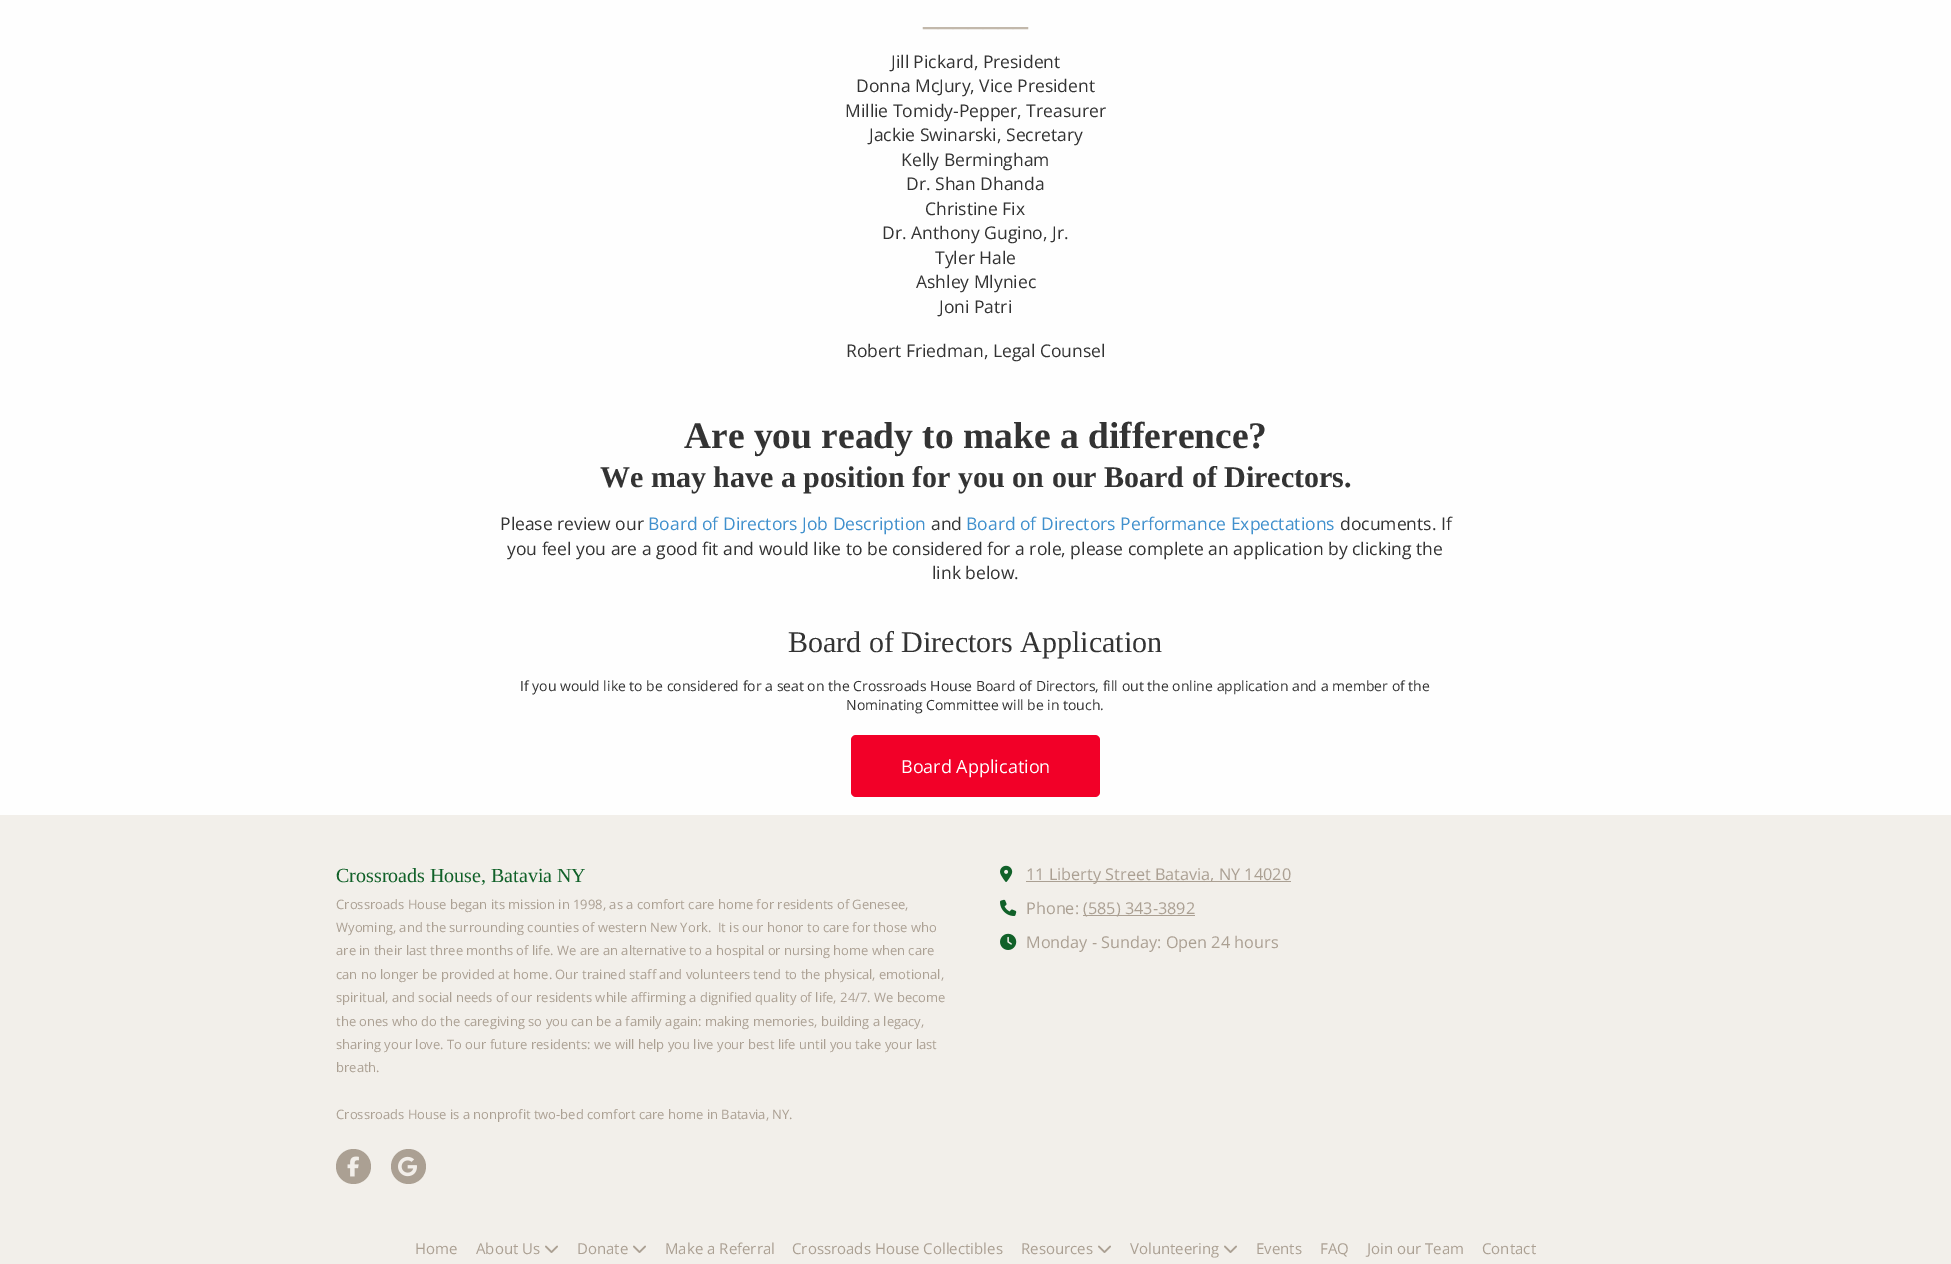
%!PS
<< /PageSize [1951 1264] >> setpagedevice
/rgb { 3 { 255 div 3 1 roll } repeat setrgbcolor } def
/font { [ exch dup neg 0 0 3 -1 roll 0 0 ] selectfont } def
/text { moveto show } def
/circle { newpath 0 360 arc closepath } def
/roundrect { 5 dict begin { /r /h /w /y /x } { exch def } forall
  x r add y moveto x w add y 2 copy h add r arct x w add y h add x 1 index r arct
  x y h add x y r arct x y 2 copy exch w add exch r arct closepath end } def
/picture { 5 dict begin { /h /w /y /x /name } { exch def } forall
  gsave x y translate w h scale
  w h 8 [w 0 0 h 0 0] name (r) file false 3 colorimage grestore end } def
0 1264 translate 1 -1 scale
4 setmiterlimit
254 254 254 rgb
0 0 1951 1264 rectfill
242 0 40 rgb
851 735 249 62 5 roundrect fill
242 239 234 rgb
0 815 1951 449 rectfill
171 160 147 rgb
353.5 1166.5 17.5 circle fill
(img_01.rgb) 347 1156 12 21 picture
408.5 1166.5 17.5 circle fill
(img_02.rgb) 398 1156 19 21 picture
(img_03.rgb) 1000 865 13 17 picture
1026 881 265 1 rectfill
(img_04.rgb) 1000 899 17 17 picture
1083 915 112 1 rectfill
(img_05.rgb) 1000 933 17 17 picture
(img_06.rgb) 545 1245 13 8 picture
(img_06.rgb) 633 1245 13 8 picture
(img_06.rgb) 1098 1245 13 8 picture
(img_06.rgb) 1224 1245 13 8 picture
/LiberationSerif-Bold 30 font
194 184 171 rgb
(_______) 923 25 text
/OpenSans-Regular 17.5 font
51 51 51 rgb
(Jill Pickard, President) 891 68 text
(Donna McJury, Vice President) 856 92 text
(Millie Tomidy-Pepper, Treasurer) 845 117 text
(Jackie Swinarski, Secretary) 869 141 text
(Kelly Bermingham) 901 166 text
(Dr. Shan Dhanda) 906 190 text
(Christine Fix) 925 215 text
(Dr. Anthony Gugino, Jr.) 882 239 text
(Tyler Hale) 935 264 text
(Ashley Mlyniec) 916 288 text
(Joni Patri) 939 313 text
(Robert Friedman, Legal Counsel) 846 357 text
/LiberationSerif-Bold 37.5 font
(Are you ready to make a difference?) 684 448 text
/LiberationSerif-Bold 30 font
(We may have a position for you on our Board of Directors.) 600 487 text
/OpenSans-Regular 17.5 font
(Please review our) 500 530 text
64 144 205 rgb
(Board of Directors Job Description) 648 530 text
51 51 51 rgb
(and) 931 530 text
64 144 205 rgb
(Board of Directors Performance Expectations) 966 530 text
51 51 51 rgb
(documents. If) 1340 530 text
(you feel you are a good fit and would like to be considered for a role, please complete an application by clicking the) 507 555 text
(link below.) 932 579 text
/LiberationSerif-Regular 30 font
(Board of Directors Application) 788 652 text
/OpenSans-Regular 14 font
(If you would like to be considered for a seat on the Crossroads House Board of Directors, fill out the online application and a member of the) 520 691 text
(Nominating Committee will be in touch.) 846 710 text
/OpenSans-Regular 18 font
255 255 255 rgb
(Board Application) 901 773 text
/LiberationSerif-Regular 20 font
17 97 41 rgb
(Crossroads House, Batavia NY) 336 882 text
/OpenSans-Regular 13 font
171 160 147 rgb
(Crossroads House began its mission in 1998, as a comfort care home for residents of Genesee,) 336 909 text
(Wyoming, and the surrounding counties of western New York.  It is our honor to care for those who) 336 932 text
(are in their last three months of life. We are an alternative to a hospital or nursing home when care) 336 955 text
(can no longer be provided at home. Our trained staff and volunteers tend to the physical, emotional,) 336 979 text
(spiritual, and social needs of our residents while affirming a dignified quality of life, 24/7. We become) 336 1002 text
(the ones who do the caregiving so you can be a family again: making memories, building a legacy,) 336 1026 text
(sharing your love. To our future residents: we will help you live your best life until you take your last) 336 1049 text
(breath.) 336 1072 text
(Crossroads House is a nonprofit two-bed comfort care home in Batavia, NY.) 336 1119 text
/OpenSans-Regular 16.25 font
(11 Liberty Street Batavia, NY 14020) 1026 880 text
(Phone:) 1026 914 text
(\(585\) 343-3892) 1083 914 text
(Monday - Sunday: Open 24 hours) 1026 948 text
/OpenSans-Regular 15 font
(Home) 415 1254 text
(About Us) 476 1254 text
(Donate) 577 1254 text
(Make a Referral) 665 1254 text
(Crossroads House Collectibles) 792 1254 text
(Resources) 1021 1254 text
(Volunteering) 1130 1254 text
(Events) 1256 1254 text
(FAQ) 1320 1254 text
(Join our Team) 1367 1254 text
(Contact) 1482 1254 text
showpage
